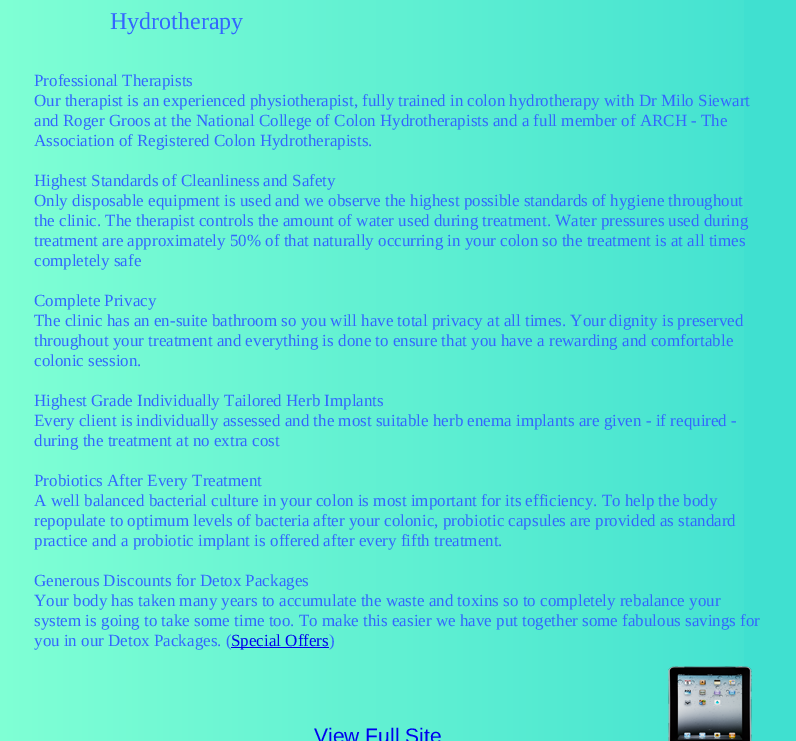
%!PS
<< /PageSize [796 741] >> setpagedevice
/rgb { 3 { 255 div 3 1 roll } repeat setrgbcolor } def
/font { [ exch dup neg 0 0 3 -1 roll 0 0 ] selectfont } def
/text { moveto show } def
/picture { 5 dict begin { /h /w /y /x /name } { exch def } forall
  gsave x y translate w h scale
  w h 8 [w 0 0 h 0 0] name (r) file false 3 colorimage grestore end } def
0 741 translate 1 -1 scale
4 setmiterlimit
64 224 208 rgb
0 0 796 741 rectfill
(img_01.rgb) 0 0 744 741 picture
0 0 238 rgb
231 647 98 1 rectfill
(img_02.rgb) 668 666 84 75 picture
/LiberationSerif-Regular 24 font
51 102 255 rgb
(Hydrotherapy) 110 29 text
/LiberationSerif-Regular 17 font
(Professional Therapists) 34 86 text
(Our therapist is an experienced physiotherapist, fully trained in colon hydrotherapy with Dr Milo Siewart) 34 106 text
(and Roger Groos at the National College of Colon Hydrotherapists and a full member of ARCH - The) 34 126 text
(Association of Registered Colon Hydrotherapists.) 34 146 text
(Highest Standards of Cleanliness and Safety) 34 186 text
(Only disposable equipment is used and we observe the highest possible standards of hygiene throughout) 34 206 text
(the clinic. The therapist controls the amount of water used during treatment. Water pressures used during) 34 226 text
(treatment are approximately 50% of that naturally occurring in your colon so the treatment is at all times) 34 246 text
(completely safe) 34 266 text
(Complete Privacy) 34 306 text
(The clinic has an en-suite bathroom so you will have total privacy at all times. Your dignity is preserved) 34 326 text
(throughout your treatment and everything is done to ensure that you have a rewarding and comfortable) 34 346 text
(colonic session.) 34 366 text
(Highest Grade Individually Tailored Herb Implants) 34 406 text
(Every client is individually assessed and the most suitable herb enema implants are given - if required -) 34 426 text
(during the treatment at no extra cost) 34 446 text
(Probiotics After Every Treatment) 34 486 text
(A well balanced bacterial culture in your colon is most important for its efficiency. To help the body) 34 506 text
(repopulate to optimum levels of bacteria after your colonic, probiotic capsules are provided as standard) 34 526 text
(practice and a probiotic implant is offered after every fifth treatment.) 34 546 text
(Generous Discounts for Detox Packages) 34 586 text
(Your body has taken many years to accumulate the waste and toxins so to completely rebalance your) 34 606 text
(system is going to take some time too. To make this easier we have put together some fabulous savings for) 34 626 text
(you in our Detox Packages. \() 34 646 text
0 0 238 rgb
(Special Offers) 231 646 text
51 102 255 rgb
(\)) 329 646 text
/LiberationSans-Regular 21 font
0 0 238 rgb
(View Full Site) 314 743 text
showpage
